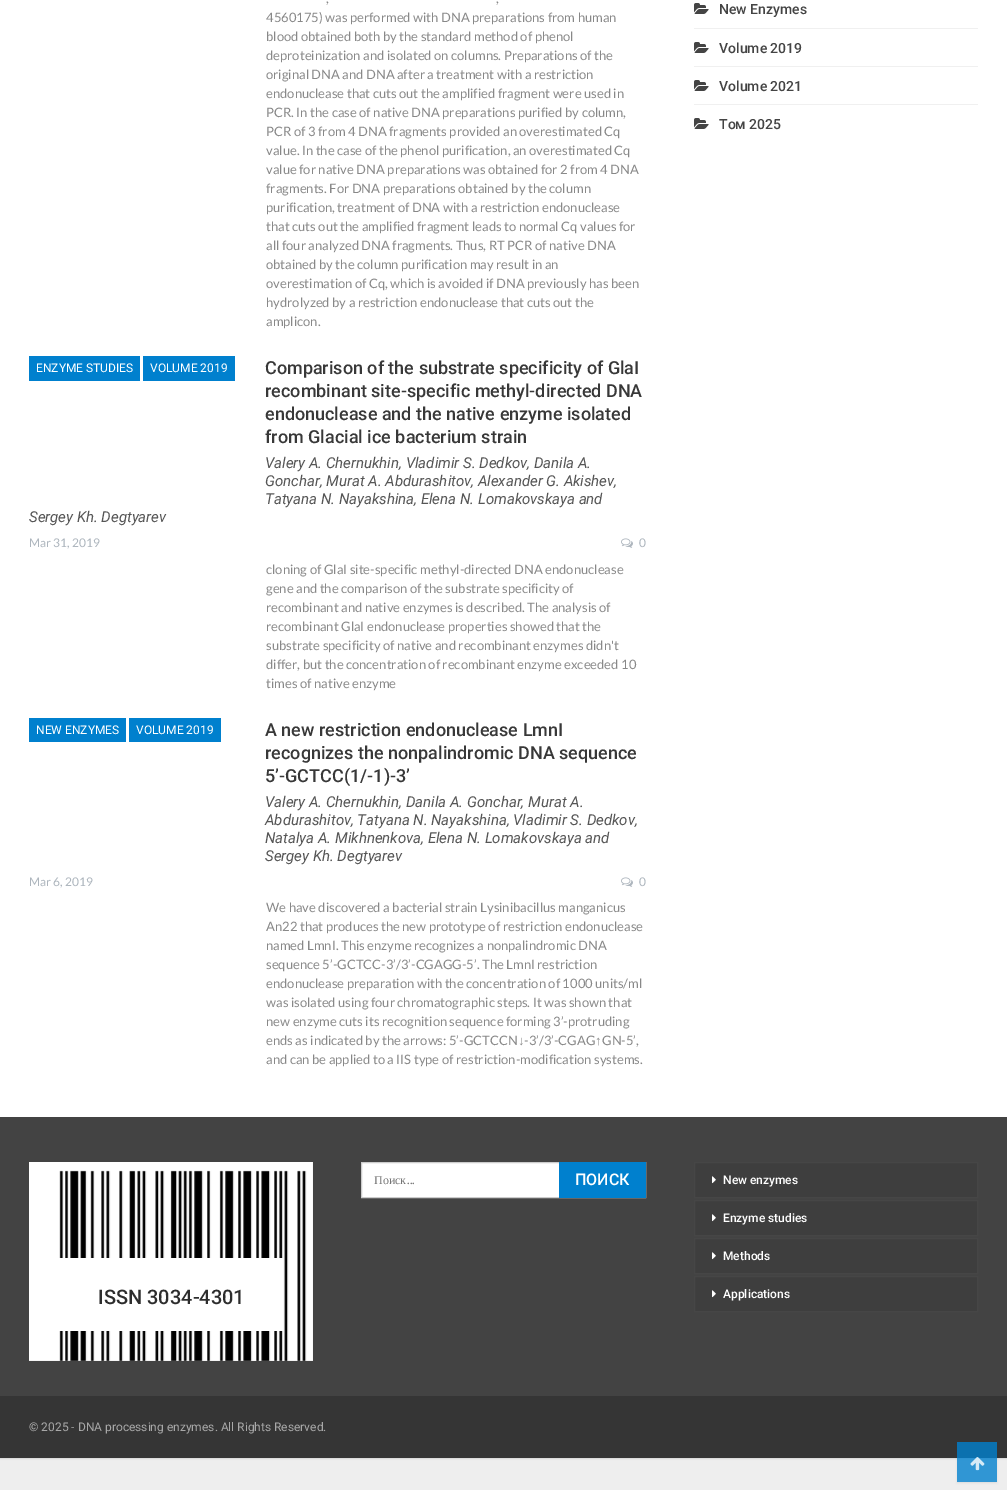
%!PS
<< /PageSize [1007 1490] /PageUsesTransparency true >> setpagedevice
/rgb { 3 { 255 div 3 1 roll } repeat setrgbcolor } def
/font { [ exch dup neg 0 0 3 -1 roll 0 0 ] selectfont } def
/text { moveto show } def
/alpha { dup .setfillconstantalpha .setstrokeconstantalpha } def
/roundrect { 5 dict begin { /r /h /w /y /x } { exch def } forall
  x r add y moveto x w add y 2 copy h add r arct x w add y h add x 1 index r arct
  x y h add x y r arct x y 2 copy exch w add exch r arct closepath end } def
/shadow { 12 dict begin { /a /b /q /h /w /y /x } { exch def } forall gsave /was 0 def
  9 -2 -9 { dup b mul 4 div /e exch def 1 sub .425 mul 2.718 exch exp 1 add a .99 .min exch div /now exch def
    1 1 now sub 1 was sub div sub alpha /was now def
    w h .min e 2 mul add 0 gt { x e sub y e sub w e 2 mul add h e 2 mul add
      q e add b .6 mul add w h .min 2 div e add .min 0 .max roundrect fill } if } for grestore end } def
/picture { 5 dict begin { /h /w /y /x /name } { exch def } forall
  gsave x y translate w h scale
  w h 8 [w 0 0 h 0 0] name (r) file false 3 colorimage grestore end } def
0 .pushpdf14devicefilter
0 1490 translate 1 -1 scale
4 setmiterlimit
238 238 238 rgb
0 0 1007 1490 rectfill
0 0 0 rgb
0 -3 1007 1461 0 1 0.27 shadow
255 255 255 rgb
0 0 1007 1117 rectfill
0 128 206 rgb
29 356 111 25 rectfill
143 356 92 25 rectfill
(img_01.rgb) 621 538 12 10 picture
29 718 97 24 rectfill
129 718 92 24 rectfill
(img_01.rgb) 621 877 12 10 picture
240 240 240 rgb
694 28 284 1 rectfill
(img_02.rgb) 694 3 15 11 picture
694 66 284 1 rectfill
(img_02.rgb) 694 42 15 11 picture
694 104 284 1 rectfill
(img_02.rgb) 694 80 15 11 picture
(img_02.rgb) 694 118 15 11 picture
67 67 67 rgb
0 1117 1007 279 rectfill
204 204 204 rgb
29 1162 284 199 rectfill
(img_03.rgb) 29 1162 284 199 picture
255 255 255 rgb
59 1258 224 73 rectfill
362 1163 197 34 rectfill
204 204 204 rgb
361.5 1162.5 284 35 rectstroke
0 128 206 rgb
559 1162 87 36 rectfill
62 62 62 rgb
694.5 1162.5 moveto 283 0 rlineto 0 35 rlineto -283 0 rlineto closepath gsave fill grestore
70 70 70 rgb
stroke
(img_04.rgb) 712 1176 4 8 picture
62 62 62 rgb
694.5 1200.5 moveto 283 0 rlineto 0 35 rlineto -283 0 rlineto closepath gsave fill grestore
70 70 70 rgb
stroke
(img_04.rgb) 712 1214 4 8 picture
62 62 62 rgb
694.5 1238.5 moveto 283 0 rlineto 0 35 rlineto -283 0 rlineto closepath gsave fill grestore
70 70 70 rgb
stroke
(img_04.rgb) 712 1252 4 8 picture
62 62 62 rgb
694.5 1276.5 moveto 283 0 rlineto 0 35 rlineto -283 0 rlineto closepath gsave fill grestore
70 70 70 rgb
stroke
(img_04.rgb) 712 1290 4 8 picture
53 53 53 rgb
0 1396 1007 62 rectfill
gsave
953 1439 moveto 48 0 rlineto 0 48 rlineto -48 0 rlineto closepath 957 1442 moveto 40 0 rlineto 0 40 rlineto -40 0 rlineto closepath eoclip newpath
0 0 0 rgb
957 1443 40 40 0 1 0.07 shadow
grestore
0.8 alpha
0 128 206 rgb
957 1442 40 40 rectfill
1 alpha
(img_05.rgb) 970 1457 15 14 picture
/Lato-Regular 13 font
136 136 136 rgb
(,) 326 3 text
(,) 496 3 text
(4560175\) was performed with DNA preparations from human) 266 22 text
(blood obtained both by the standard method of phenol) 266 41 text
(deproteinization and isolated on columns. Preparations of the) 266 60 text
(original DNA and DNA after a treatment with a restriction) 266 79 text
(endonuclease that cuts out the amplified fragment were used in) 266 98 text
(PCR. In the case of native DNA preparations purified by column,) 266 117 text
(PCR of 3 from 4 DNA fragments provided an overestimated Cq) 266 136 text
(value. In the case of the phenol purification, an overestimated Cq) 266 155 text
(value for native DNA preparations was obtained for 2 from 4 DNA) 266 174 text
(fragments. For DNA preparations obtained by the column) 266 193 text
(purification, treatment of DNA with a restriction endonuclease) 266 212 text
(that cuts out the amplified fragment leads to normal Cq values for) 266 231 text
(all four analyzed DNA fragments. Thus, RT PCR of native DNA) 266 250 text
(obtained by the column purification may result in an) 266 269 text
(overestimation of Cq, which is avoided if DNA previously has been) 266 288 text
(hydrolyzed by a restriction endonuclease that cuts out the) 266 307 text
(amplicon.) 266 326 text
/Roboto-Regular 12 font
255 255 255 rgb
(ENZYME STUDIES) 36 372 text
(VOLUME 2019) 150 372 text
/Roboto-Medium 18 font
56 56 56 rgb
(Comparison of the substrate specificity of GlaI) 265 374 text
(recombinant site-specific methyl-directed DNA) 265 397 text
(endonuclease and the native enzyme isolated) 265 420 text
(from Glacial ice bacterium strain) 265 443 text
/Roboto-Italic 15 font
86 86 86 rgb
(Valery A. Chernukhin, Vladimir S. Dedkov, Danila A.) 265 468 text
(Gonchar, Murat A. Abdurashitov, Alexander G. Akishev,) 265 486 text
(Tatyana N. Nayakshina, Elena N. Lomakovskaya and) 265 504 text
(Sergey Kh. Degtyarev) 29 522 text
/Lato-Regular 12 font
173 181 189 rgb
(Mar 31, 2019) 29 547 text
(0) 639 547 text
/Lato-Regular 13 font
136 136 136 rgb
(cloning of GlaI site-specific methyl-directed DNA endonuclease) 266 574 text
(gene and the comparison of the substrate specificity of) 266 593 text
(recombinant and native enzymes is described. The analysis of) 266 612 text
(recombinant GlaI endonuclease properties showed that the) 266 631 text
(substrate specificity of native and recombinant enzymes didn't) 266 650 text
(differ, but the concentration of recombinant enzyme exceeded 10) 266 669 text
(times of native enzyme) 266 688 text
/Roboto-Regular 12 font
255 255 255 rgb
(NEW ENZYMES) 36 734 text
(VOLUME 2019) 136 734 text
/Roboto-Medium 18 font
56 56 56 rgb
(A new restriction endonuclease LmnI) 265 736 text
(recognizes the nonpalindromic DNA sequence) 265 759 text
(5’-GCTCC\(1/-1\)-3’) 265 782 text
/Roboto-Italic 15 font
86 86 86 rgb
(Valery A. Chernukhin, Danila A. Gonchar, Murat A.) 265 807 text
(Abdurashitov, Tatyana N. Nayakshina, Vladimir S. Dedkov,) 265 825 text
(Natalya A. Mikhnenkova, Elena N. Lomakovskaya and) 265 843 text
(Sergey Kh. Degtyarev) 265 861 text
/Lato-Regular 12 font
173 181 189 rgb
(Mar 6, 2019) 29 886 text
(0) 639 886 text
/Lato-Regular 13 font
136 136 136 rgb
(We have discovered a bacterial strain Lysinibacillus manganicus) 266 912 text
(An22 that produces the new prototype of restriction endonuclease) 266 931 text
(named LmnI. This enzyme recognizes a nonpalindromic DNA) 266 950 text
(sequence 5’-GCTCC-3’/3’-CGAGG-5’. The LmnI restriction) 266 969 text
(endonuclease preparation with the concentration of 1000 units/ml) 266 988 text
(was isolated using four chromatographic steps. It was shown that) 266 1007 text
(new enzyme cuts its recognition sequence forming 3’-protruding) 266 1026 text
(ends as indicated by the arrows: 5’-GCTCCN) 266 1045 text
/LiberationSerif-Regular 13 font
(↓) 518 1045 text
/Lato-Regular 13 font
(-3’/3’-CGAG) 524 1045 text
/LiberationSerif-Regular 13 font
(↑) 595 1045 text
/Lato-Regular 13 font
(GN-5’,) 602 1045 text
(and can be applied to a IIS type of restriction-modification systems.) 266 1064 text
/Roboto-Medium 14 font
68 68 68 rgb
(New Enzymes) 719 14 text
(Volume 2019) 719 53 text
(Volume 2021) 719 91 text
(Том 2025) 719 129 text
/Roboto-Medium 20 font
45 45 45 rgb
(ISSN 3034-4301) 98 1304 text
/LiberationSerif-Regular 12 font
117 117 117 rgb
(Поиск) 374 1184 text
/Lato-Regular 12 font
(...) 407 1184 text
/Roboto-Medium 16 font
255 255 255 rgb
(ПОИСК) 575 1185 text
/Roboto-Medium 12 font
(New enzymes) 723 1184 text
(Enzyme studies) 723 1222 text
(Methods) 723 1260 text
(Applications) 723 1298 text
/Roboto-Regular 12 font
168 168 168 rgb
(© 2025 - DNA processing enzymes. All Rights Reserved.) 29 1431 text
.poppdf14devicefilter showpage
